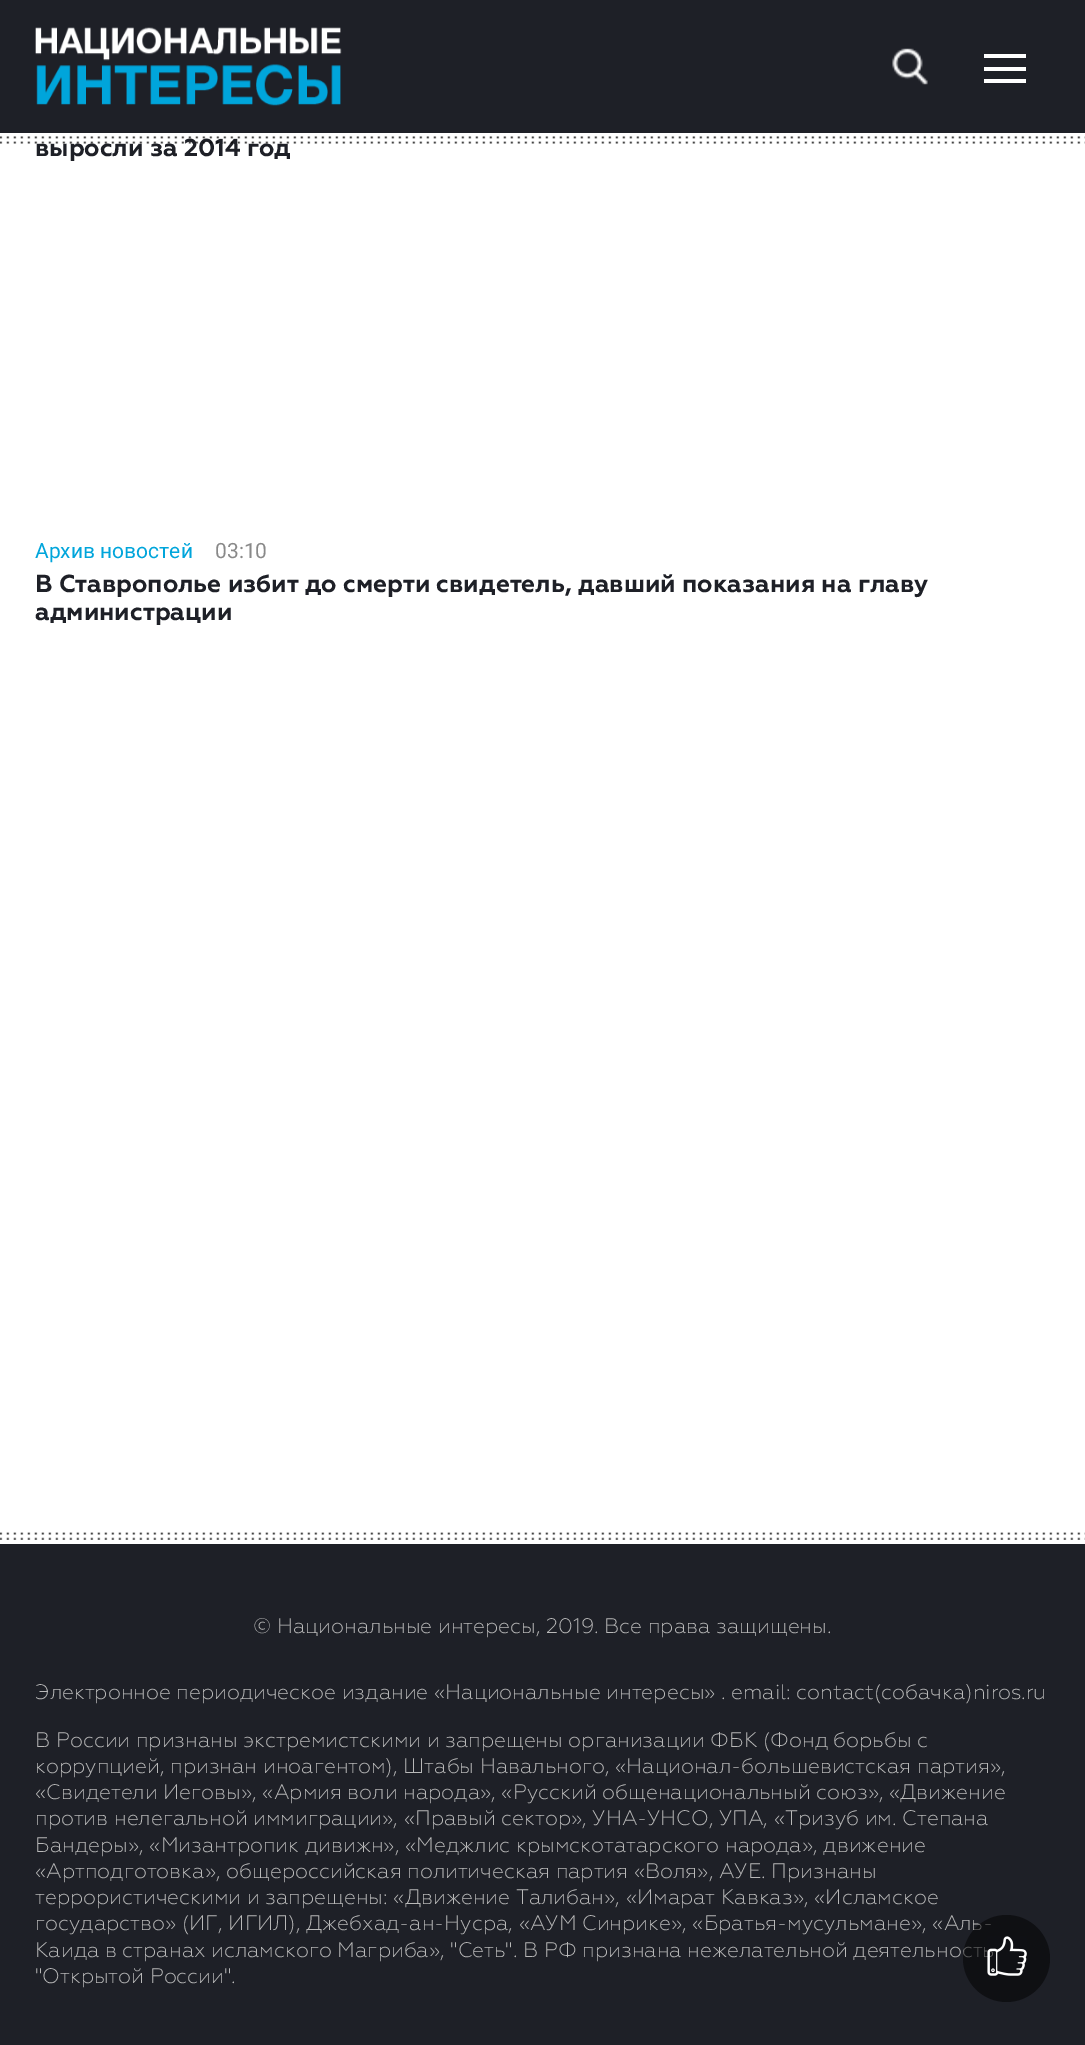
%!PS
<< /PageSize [1085 2045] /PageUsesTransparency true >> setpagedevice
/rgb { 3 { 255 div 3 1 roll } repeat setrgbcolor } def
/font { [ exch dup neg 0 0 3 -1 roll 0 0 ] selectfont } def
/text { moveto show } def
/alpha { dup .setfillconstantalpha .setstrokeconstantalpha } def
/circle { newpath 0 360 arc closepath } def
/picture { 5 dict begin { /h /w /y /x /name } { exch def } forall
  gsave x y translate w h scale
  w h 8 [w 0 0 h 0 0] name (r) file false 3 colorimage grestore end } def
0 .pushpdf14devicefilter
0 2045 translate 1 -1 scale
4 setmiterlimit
255 255 255 rgb
0 0 1085 2045 rectfill
30 32 39 rgb
0 0 1085 133 rectfill
(img_01.rgb) 35 27 307 79 picture
(img_02.rgb) 892 48 36 37 picture
255 255 255 rgb
984 54 42 4 rectfill
984 67 42 4 rectfill
984 79 42 4 rectfill
30 32 39 rgb
0 1544 1085 501 rectfill
(img_05.rgb) 0 1532 1085 8 picture
/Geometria-Bold 24.5 font
(выросли за 2014 год) 35 156 text
(img_03.rgb) 0 136 1085 8 picture
/Roboto-Regular 21 font
0 165 219 rgb
(Архив новостей) 35 558 text
137 137 137 rgb
(03:10) 215 558 text
/Geometria-Bold 24.5 font
30 32 39 rgb
(В Ставрополье избит до смерти свидетель, давший показания на главу) 35 592 text
(администрации) 35 620 text
/Geometria-Light 21 font
185 185 185 rgb
(© Национальные интересы, 2019. Все права защищены.) 253 1633 text
(Электронное периодическое издание «Национальные интересы» . email: contact\(сoбaчка\)niros.ru) 35 1699 text
(В России признаны экстремистскими и запрещены организации ФБК \(Фонд борьбы с) 35 1747 text
(коррупцией, признан иноагентом\), Штабы Навального, «Национал-большевистская партия»,) 35 1773 text
(«Свидетели Иеговы», «Армия воли народа», «Русский общенациональный союз», «Движение) 35 1799 text
(против нелегальной иммиграции», «Правый сектор», УНА-УНСО, УПА, «Тризуб им. Степана) 35 1825 text
(Бандеры», «Мизантропик дивижн», «Меджлис крымскотатарского народа», движение) 35 1852 text
(«Артподготовка», общероссийская политическая партия «Воля», АУЕ. Признаны) 35 1878 text
(террористическими и запрещены: «Движение Талибан», «Имарат Кавказ», «Исламское) 35 1904 text
(государство» \(ИГ, ИГИЛ\), Джебхад-ан-Нусра, «АУМ Синрике», «Братья-мусульмане», «Аль-) 35 1930 text
(Каида в странах исламского Магриба», "Сеть". В РФ признана нежелательной деятельность) 35 1957 text
0.5 alpha
0 0 0 rgb
1006.5 1958.5 43.5 circle fill
1 alpha
(img_04.rgb) 987 1936 40 40 picture
185 185 185 rgb
("Открытой России".) 35 1983 text
.poppdf14devicefilter showpage
